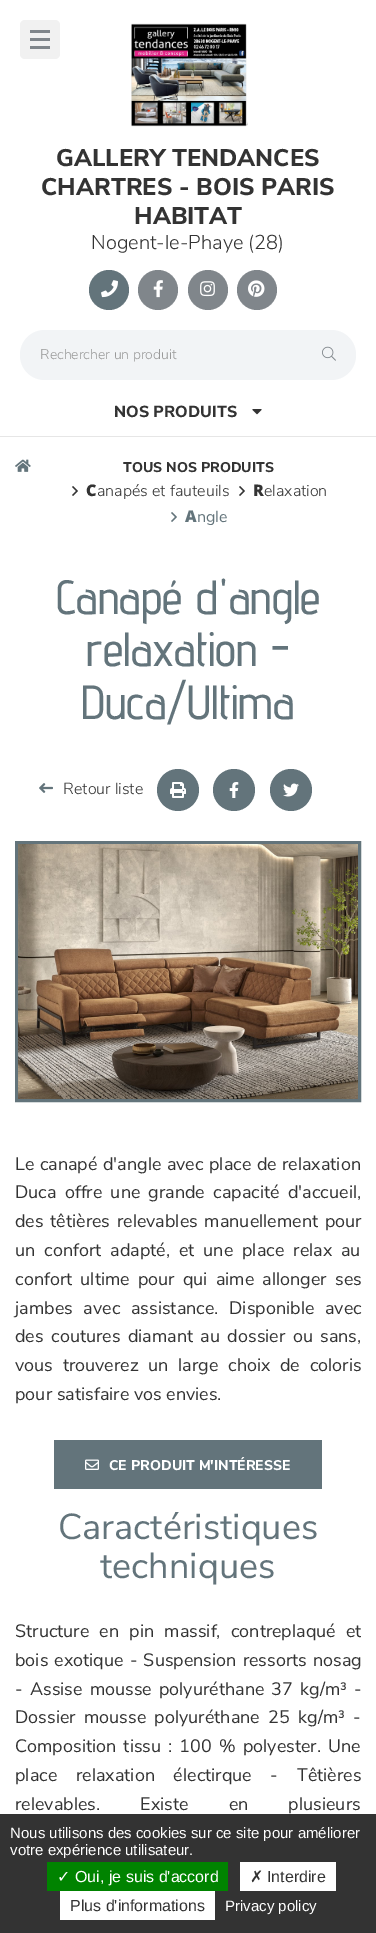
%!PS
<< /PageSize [376 1933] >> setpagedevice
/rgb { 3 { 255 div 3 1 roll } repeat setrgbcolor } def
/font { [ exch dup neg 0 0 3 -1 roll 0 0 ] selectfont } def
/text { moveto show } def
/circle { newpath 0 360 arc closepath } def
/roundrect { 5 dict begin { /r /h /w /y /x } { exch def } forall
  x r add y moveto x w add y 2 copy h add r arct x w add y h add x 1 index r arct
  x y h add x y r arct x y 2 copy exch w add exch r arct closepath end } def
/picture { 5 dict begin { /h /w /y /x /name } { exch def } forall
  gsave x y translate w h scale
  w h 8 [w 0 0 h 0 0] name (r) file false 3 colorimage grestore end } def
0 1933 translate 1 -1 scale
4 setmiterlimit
255 255 255 rgb
0 0 376 1933 rectfill
230 230 230 rgb
0 436 376 1 rectfill
241 241 241 rgb
20 20 40 39 5 roundrect fill
128 134 139 rgb
30 30 20 3 rectfill
30 38 20 3 rectfill
30 46 20 3 rectfill
(img_01.rgb) 131 23 117 104 picture
99 116 123 rgb
109 290 20 circle fill
(img_02.rgb) 101 280 17 18 picture
128 134 139 rgb
158 290 20 circle fill
(img_03.rgb) 153 280 10 18 picture
208 290 20 circle fill
(img_04.rgb) 200 281 15 16 picture
257 290 20 circle fill
(img_05.rgb) 248 280 17 17 picture
242 244 246 rgb
45 330 moveto 268 0 rlineto 0 50 rlineto -268 0 rlineto -14 0 -25 -11 -25 -25 rcurveto 0 -14 11 -25 25 -25 rcurveto closepath fill
312 330 moveto 19 0 rlineto 14 0 25 11 25 25 rcurveto 0 14 -11 25 -25 25 rcurveto -19 0 rlineto closepath fill
(img_06.rgb) 322 346 14 15 picture
(img_07.rgb) 252 409 10 6 picture
(img_08.rgb) 15 459 16 13 picture
(img_09.rgb) 72 486 6 10 picture
(img_09.rgb) 239 486 6 10 picture
(img_10.rgb) 171 512 6 10 picture
(img_11.rgb) 39 783 14 10 picture
99 116 123 rgb
178 790 21 circle fill
(img_12.rgb) 170 782 16 16 picture
234 790 21 circle fill
(img_13.rgb) 229 782 10 16 picture
291 790 21 circle fill
(img_14.rgb) 283 783 16 14 picture
3 setlinewidth
16.5 842.5 343 258 rectstroke
(img_15.rgb) 18 844 340 255 picture
54 1440 268 49 rectfill
(img_16.rgb) 85 1459 14 11 picture
51 51 51 rgb
0 1814 376 119 rectfill
0 131 0 rgb
47 1862 181 29 rectfill
255 255 255 rgb
240 1862 96 29 rectfill
60 1891 155 29 rectfill
/NunitoSans-ExtraBold 24 font
51 51 51 rgb
(GALLERY TENDANCES) 56 166 text
(CHARTRES - BOIS PARIS) 41 195 text
(HABITAT) 134 224 text
/NunitoSans-Light 20 font
(Nogent-le-Phaye \(28\)) 91 249 text
/NunitoSans-Light 14 font
153 153 153 rgb
(Rechercher un produit) 40 359 text
/NunitoSans-ExtraBold 16 font
51 51 51 rgb
(NOS PRODUITS) 114 417 text
/NunitoSans-ExtraBold 14 font
(TOUS NOS PRODUITS) 123 472 text
/NotoSans-Black 16 font
(C) 86 496 text
/NunitoSans-Light 16 font
(anapés et fauteuils) 97 496 text
/NotoSans-Black 16 font
(R) 253 496 text
/NunitoSans-Light 16 font
(elaxation) 264 496 text
/NotoSans-Black 16 font
99 116 123 rgb
(A) 185 522 text
/NunitoSans-Regular 16 font
(ngle) 197 522 text
/AdventPro-Medium 48 font
(Canapé d'angle) 56 614 text
(relaxation -) 86 666 text
(Duca/Ultima) 81 719 text
/NunitoSans-Light 16 font
51 51 51 rgb
(Retour liste) 63 794 text
/NunitoSans-Regular 18 font
15 1170 moveto 0.75 0 32 (Le canapé d'angle avec place de relaxation) widthshow
15 1198 moveto 3.5 0 32 (Duca offre une grande capacité d'accueil,) widthshow
15 1227 moveto 2 0 32 (des têtières relevables manuellement pour) widthshow
15 1256 moveto 4.25 0 32 (un confort adapté, et une place relax au) widthshow
15 1285 moveto 3.5 0 32 (confort ultime pour qui aime allonger ses) widthshow
15 1314 moveto 6 0 32 (jambes avec assistance. Disponible avec) widthshow
15 1342 moveto 2.75 0 32 (des coutures diamant au dossier ou sans,) widthshow
15 1371 moveto 5 0 32 (vous trouverez un large choix de coloris) widthshow
(pour satisfaire vos envies.) 15 1400 text
/NunitoSans-ExtraBold 14 font
255 255 255 rgb
(CE PRODUIT M'INTÉRESSE) 109 1470 text
/NunitoSans-Regular 36 font
99 116 123 rgb
(Caractéristiques) 58 1539 text
(techniques) 100 1578 text
/NunitoSans-Regular 18 font
51 51 51 rgb
15 1637 moveto 5.5 0 32 (Structure en pin massif, contreplaqué et) widthshow
15 1666 moveto 1.5 0 32 (bois exotique - Suspension ressorts nosag) widthshow
15 1695 moveto 2.5 0 32 (- Assise mousse polyuréthane 37 kg/m³ -) widthshow
15 1723 moveto 3.75 0 32 (Dossier mousse polyuréthane 25 kg/m³ -) widthshow
15 1752 moveto 2.5 0 32 (Composition tissu : 100 % polyester. Une) widthshow
15 1781 moveto 14 0 32 (place relaxation électirque - Têtières) widthshow
15 1810 moveto 35.5 0 32 (relevables. Existe en plusieurs) widthshow
/LiberationSans-Regular 15 font
255 255 255 rgb
(Nous utilisons des cookies sur ce site pour améliorer) 10 1838 text
(votre expérience utilisateur.) 10 1855 text
/DejaVuSans-Regular 16 font
(✓) 57 1882 text
/LiberationSans-Regular 16 font
(Oui, je suis d'accord) 75 1882 text
/DejaVuSans-Regular 16 font
51 51 51 rgb
(✗) 250 1882 text
/LiberationSans-Regular 16 font
(Interdire) 267 1882 text
(Plus d'informations) 70 1911 text
/LiberationSans-Regular 15 font
255 255 255 rgb
(Privacy policy) 225 1911 text
showpage
